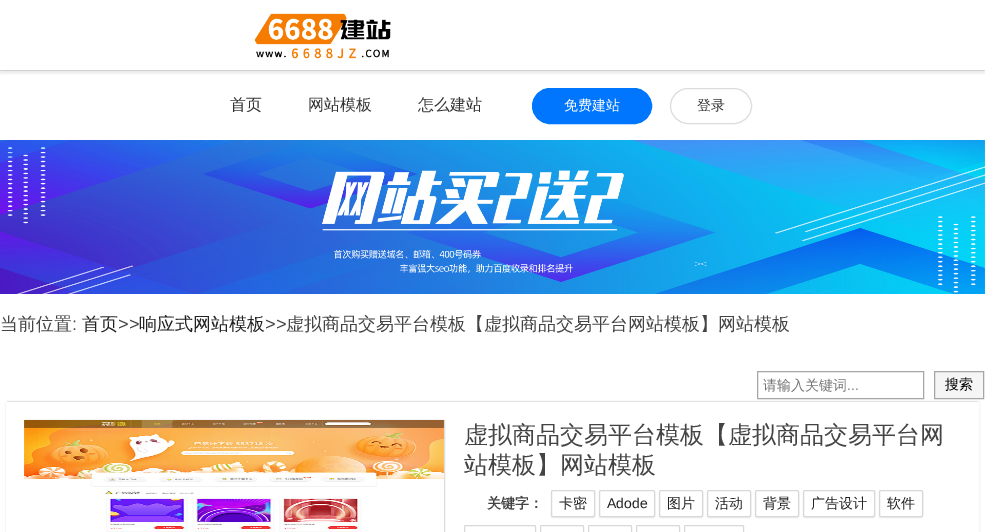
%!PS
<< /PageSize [985 532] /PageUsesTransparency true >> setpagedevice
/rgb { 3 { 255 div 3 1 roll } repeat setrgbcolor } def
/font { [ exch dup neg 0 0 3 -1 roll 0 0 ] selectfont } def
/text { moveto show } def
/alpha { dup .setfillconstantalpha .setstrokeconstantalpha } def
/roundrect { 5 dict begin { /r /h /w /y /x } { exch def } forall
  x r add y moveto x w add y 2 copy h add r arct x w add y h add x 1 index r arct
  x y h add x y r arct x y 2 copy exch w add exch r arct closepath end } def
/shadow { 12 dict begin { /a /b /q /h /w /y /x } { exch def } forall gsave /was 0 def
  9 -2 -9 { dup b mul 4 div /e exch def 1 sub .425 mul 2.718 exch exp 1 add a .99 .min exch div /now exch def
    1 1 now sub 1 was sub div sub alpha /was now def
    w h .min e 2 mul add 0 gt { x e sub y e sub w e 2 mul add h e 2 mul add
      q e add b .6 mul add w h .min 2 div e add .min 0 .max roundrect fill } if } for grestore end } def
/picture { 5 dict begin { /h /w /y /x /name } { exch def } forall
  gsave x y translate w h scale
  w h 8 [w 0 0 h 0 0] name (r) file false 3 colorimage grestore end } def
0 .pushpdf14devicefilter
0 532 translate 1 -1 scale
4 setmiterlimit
255 255 255 rgb
0 0 985 532 rectfill
229 229 229 rgb
0 70 985 1 rectfill
gsave
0 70 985 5 rectclip
0 0 0 rgb
0 3 985 70 0 2 0.1 shadow
grestore
(img_01.rgb) 254 13 137 46 picture
0 118 254 rgb
532.5 88.5 119 35 17.5 roundrect gsave fill grestore
stroke
220 220 220 rgb
670.5 88.5 81 35 17.5 roundrect stroke
(img_02.rgb) 0 140 985 154 picture
166 166 166 rgb
757.5 371.5 166 27 rectstroke
245 245 245 rgb
934.5 371.5 moveto 49 0 rlineto 0 27 rlineto -49 0 rlineto closepath gsave fill grestore
166 166 166 rgb
stroke
0 0 0 rgb
7 401 973 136 2 1 0.05 shadow
5 401 973 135 2 0.5 0.04 shadow
255 255 255 rgb
6 401 973 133 2 roundrect fill
228 228 228 rgb
7 401 971 1 rectfill
0 0 0 rgb
25 420 420 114 0 0.5 0.15 shadow
(img_03.rgb) 24 420 420 112 picture
gsave
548 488 moveto 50 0 rlineto 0 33 rlineto -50 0 rlineto closepath 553 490 moveto 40 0 rlineto 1 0 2 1 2 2 rcurveto 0 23 rlineto 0 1 -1 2 -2 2 rcurveto -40 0 rlineto -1 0 -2 -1 -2 -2 rcurveto 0 -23 rlineto 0 -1 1 -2 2 -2 rcurveto closepath eoclip newpath
50 50 50 rgb
551 491 44 27 2 0.5 0.1 shadow
grestore
216 216 216 rgb
551.5 490.5 43 26 1.5 roundrect stroke
gsave
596 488 moveto 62 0 rlineto 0 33 rlineto -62 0 rlineto closepath 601 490 moveto 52 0 rlineto 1 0 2 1 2 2 rcurveto 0 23 rlineto 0 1 -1 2 -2 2 rcurveto -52 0 rlineto -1 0 -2 -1 -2 -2 rcurveto 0 -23 rlineto 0 -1 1 -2 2 -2 rcurveto closepath eoclip newpath
50 50 50 rgb
599 491 56 27 2 0.5 0.1 shadow
grestore
599.5 490.5 55 26 1.5 roundrect stroke
gsave
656 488 moveto 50 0 rlineto 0 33 rlineto -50 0 rlineto closepath 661 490 moveto 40 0 rlineto 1 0 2 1 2 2 rcurveto 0 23 rlineto 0 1 -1 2 -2 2 rcurveto -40 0 rlineto -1 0 -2 -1 -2 -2 rcurveto 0 -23 rlineto 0 -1 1 -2 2 -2 rcurveto closepath eoclip newpath
50 50 50 rgb
659 491 44 27 2 0.5 0.1 shadow
grestore
659.5 490.5 43 26 1.5 roundrect stroke
gsave
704 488 moveto 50 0 rlineto 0 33 rlineto -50 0 rlineto closepath 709 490 moveto 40 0 rlineto 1 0 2 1 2 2 rcurveto 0 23 rlineto 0 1 -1 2 -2 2 rcurveto -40 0 rlineto -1 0 -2 -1 -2 -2 rcurveto 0 -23 rlineto 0 -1 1 -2 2 -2 rcurveto closepath eoclip newpath
50 50 50 rgb
707 491 44 27 2 0.5 0.1 shadow
grestore
707.5 490.5 43 26 1.5 roundrect stroke
gsave
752 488 moveto 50 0 rlineto 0 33 rlineto -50 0 rlineto closepath 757 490 moveto 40 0 rlineto 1 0 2 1 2 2 rcurveto 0 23 rlineto 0 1 -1 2 -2 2 rcurveto -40 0 rlineto -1 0 -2 -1 -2 -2 rcurveto 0 -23 rlineto 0 -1 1 -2 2 -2 rcurveto closepath eoclip newpath
50 50 50 rgb
755 491 44 27 2 0.5 0.1 shadow
grestore
755.5 490.5 43 26 1.5 roundrect stroke
gsave
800 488 moveto 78 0 rlineto 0 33 rlineto -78 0 rlineto closepath 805 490 moveto 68 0 rlineto 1 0 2 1 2 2 rcurveto 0 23 rlineto 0 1 -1 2 -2 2 rcurveto -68 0 rlineto -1 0 -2 -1 -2 -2 rcurveto 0 -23 rlineto 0 -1 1 -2 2 -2 rcurveto closepath eoclip newpath
50 50 50 rgb
803 491 72 27 2 0.5 0.1 shadow
grestore
803.5 490.5 71 26 1.5 roundrect stroke
gsave
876 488 moveto 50 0 rlineto 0 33 rlineto -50 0 rlineto closepath 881 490 moveto 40 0 rlineto 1 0 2 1 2 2 rcurveto 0 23 rlineto 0 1 -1 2 -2 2 rcurveto -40 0 rlineto -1 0 -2 -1 -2 -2 rcurveto 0 -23 rlineto 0 -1 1 -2 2 -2 rcurveto closepath eoclip newpath
50 50 50 rgb
879 491 44 27 2 0.5 0.1 shadow
grestore
879.5 490.5 43 26 1.5 roundrect stroke
464.5 525.5 71 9 1.5 roundrect stroke
540.5 525.5 43 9 1.5 roundrect stroke
588.5 525.5 43 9 1.5 roundrect stroke
636.5 525.5 43 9 1.5 roundrect stroke
684.5 525.5 59 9 1.5 roundrect stroke
/WenQuanYiZenHei-Medium 16 font
51 51 51 rgb
(首页) 230 110 text
(网站模板) 308 110 text
(怎么建站) 418 110 text
/WenQuanYiZenHei-Medium 14 font
255 255 255 rgb
(免费建站) 564 110 text
51 51 51 rgb
(登录) 697 110 text
/WenQuanYiZenHei-Medium 18 font
68 68 68 rgb
(当前位置) 0 330 text
/LiberationSans-Regular 18 font
(:) 72 330 text
/WenQuanYiZenHei-Medium 18 font
34 34 34 rgb
(首页) 82 330 text
/LiberationSans-Regular 18 font
68 68 68 rgb
(>>) 118 330 text
/WenQuanYiZenHei-Medium 18 font
34 34 34 rgb
(响应式网站模板) 139 330 text
/LiberationSans-Regular 18 font
68 68 68 rgb
(>>) 265 330 text
/WenQuanYiZenHei-Medium 18 font
(虚拟商品交易平台模板【虚拟商品交易平台网站模板】网站模板) 286 330 text
/WenQuanYiZenHei-Medium 14 font
117 117 117 rgb
(请输入关键词) 763 390 text
/LiberationSans-Regular 14 font
(...) 847 390 text
/WenQuanYiZenHei-Medium 14 font
0 0 0 rgb
(搜索) 945 389 text
/WenQuanYiZenHei-Medium 24 font
68 68 68 rgb
(虚拟商品交易平台模板【虚拟商品交易平台网) 464 443 text
(站模板】网站模板) 464 473 text
/WenQuanYiZenHei-Bold 14 font
(关键字：) 487 508 text
/WenQuanYiZenHei-Medium 14 font
34 34 34 rgb
(卡密) 559 508 text
/LiberationSans-Regular 14 font
(Adode) 607 508 text
/WenQuanYiZenHei-Medium 14 font
(图片) 667 508 text
(活动) 715 508 text
(背景) 763 508 text
(广告设计) 811 508 text
(软件) 887 508 text
.poppdf14devicefilter showpage
